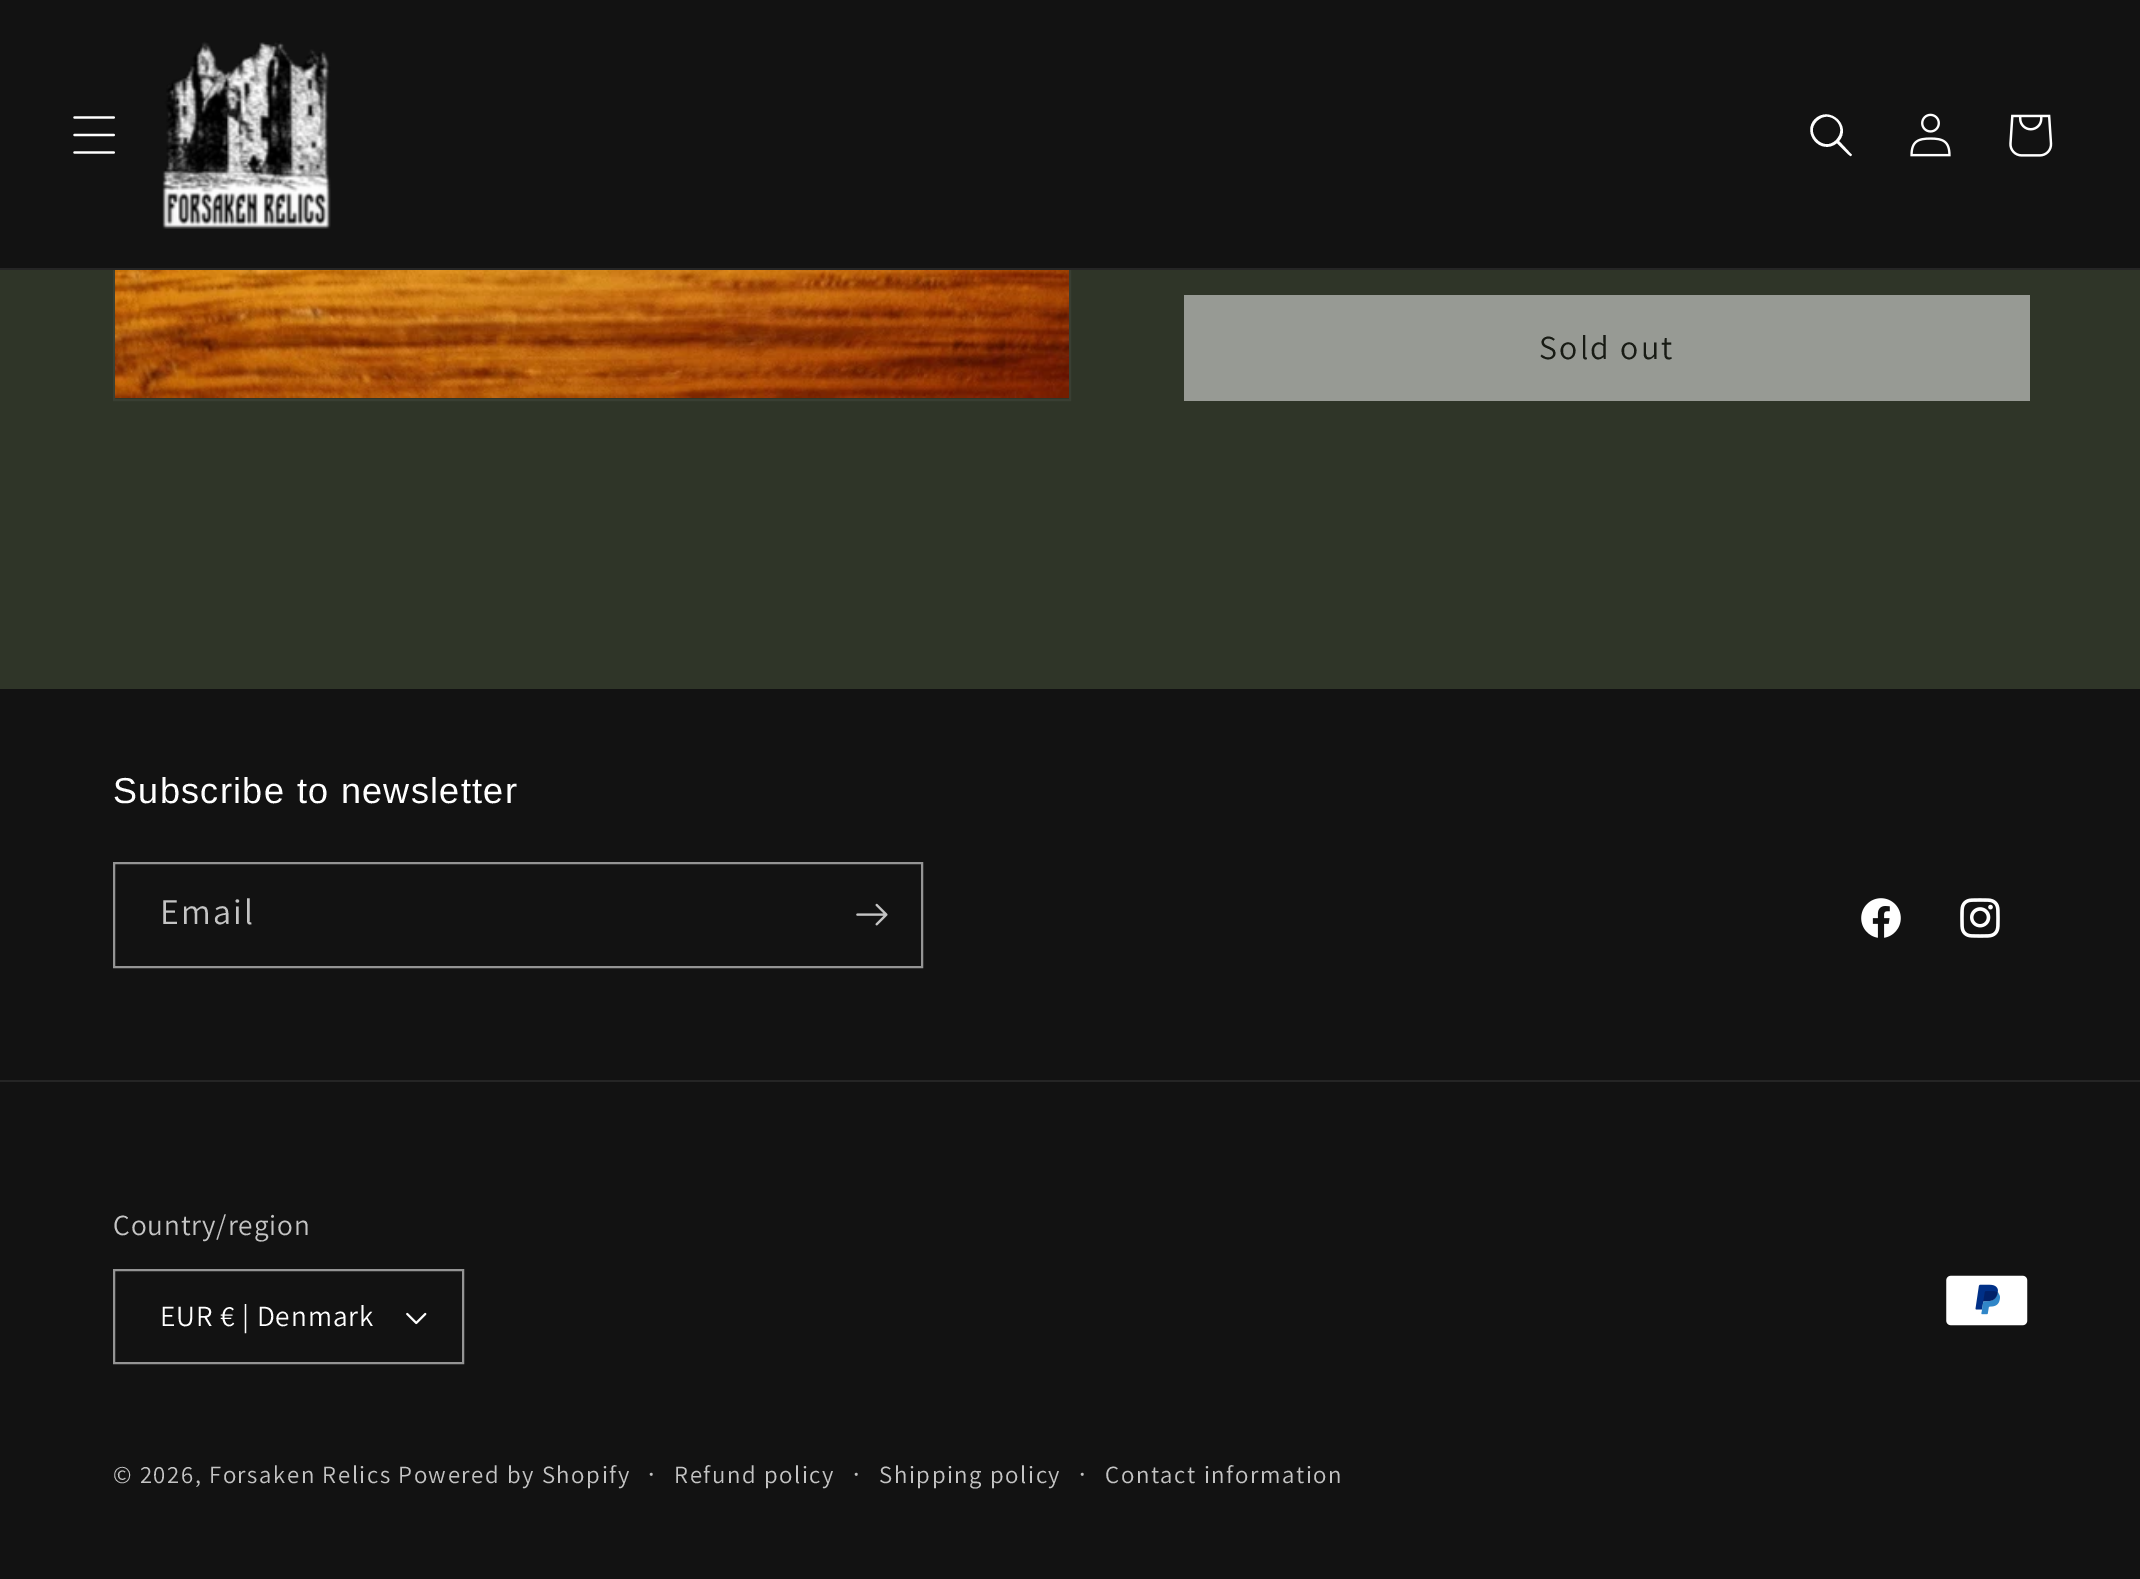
%!PS
<< /PageSize [2140 1579] >> setpagedevice
/rgb { 3 { 255 div 3 1 roll } repeat setrgbcolor } def
/font { [ exch dup neg 0 0 3 -1 roll 0 0 ] selectfont } def
/picture { 5 dict begin { /h /w /y /x /name } { exch def } forall
  gsave x y translate w h scale
  w h 8 [w 0 0 h 0 0] name (r) file false 3 colorimage grestore end } def
0 1579 translate 1 -1 scale
4 setmiterlimit
47 53 40 rgb
0 0 2140 1579 rectfill
57 63 51 rgb
2 setlinewidth
114 -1 956 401 rectstroke
18 18 18 rgb
0 0 2140 268 rectfill
37 37 37 rgb
0 268 2140 2 rectfill
(img_01.rgb) 73 116 42 38 picture
(img_02.rgb) 162 41 169 188 picture
255 255 255 rgb
1836 140 moveto -12 13 -32 -7 -19 -19 rcurveto 13 -13 32 6 19 19 rcurveto closepath 1837 143 moveto -16 13 -36 -10 -22 -24 rcurveto 15 -14 37 7 24 22 rcurveto 13 14 rlineto -1 1 rlineto -1 1 -12 -11 -14 -13 rcurveto closepath eofill
(img_03.rgb) 1910 113 41 44 picture
(img_04.rgb) 2009 114 44 43 picture
(img_05.rgb) 115 270 954 128 picture
151 154 148 rgb
1184 295 846 106 rectfill
18 18 18 rgb
0 689 2140 890 rectfill
148 148 148 rgb
114 863 808 104 rectstroke
(img_06.rgb) 856 903 32 23 picture
(img_07.rgb) 1861 898 40 40 picture
(img_08.rgb) 1960 898 40 40 picture
37 37 37 rgb
0 1080 2140 2 rectfill
(img_09.rgb) 406 1312 21 13 picture
148 148 148 rgb
114 1270 349 93 rectstroke
(img_10.rgb) 1946 1275 82 51 picture
/Assistant-Regular 33.75 font
24 27 20 rgb
1539 359 moveto 2.25 0 (Sold out) ashow
/Arimo-Regular 36 font
255 255 255 rgb
113 803 moveto 1.35 0 (Subscribe to newsletter) ashow
/Assistant-Regular 36 font
196 196 196 rgb
160 924 moveto 2.25 0 (Email) ashow
/Assistant-Regular 29.25 font
113 1235 moveto 0.9 0 (Country/region) ashow
255 255 255 rgb
160 1326 moveto 0.9 0 (EUR € | Denmark) ashow
/Assistant-Regular 24.75 font
196 196 196 rgb
113 1483 moveto 1.6 0 (© 2026, Forsaken Relics) ashow
398 1483 moveto 1.6 0 (Powered by Shopify) ashow
/Assistant-Regular 27 font
648 1483 moveto 1.6 0 (·) ashow
/Assistant-Regular 24.75 font
674 1483 moveto 1.6 0 (Refund policy) ashow
/Assistant-Regular 27 font
853 1483 moveto 1.6 0 (·) ashow
/Assistant-Regular 24.75 font
879 1483 moveto 1.6 0 (Shipping policy) ashow
/Assistant-Regular 27 font
1079 1483 moveto 1.6 0 (·) ashow
/Assistant-Regular 24.75 font
1105 1483 moveto 1.6 0 (Contact information) ashow
showpage
